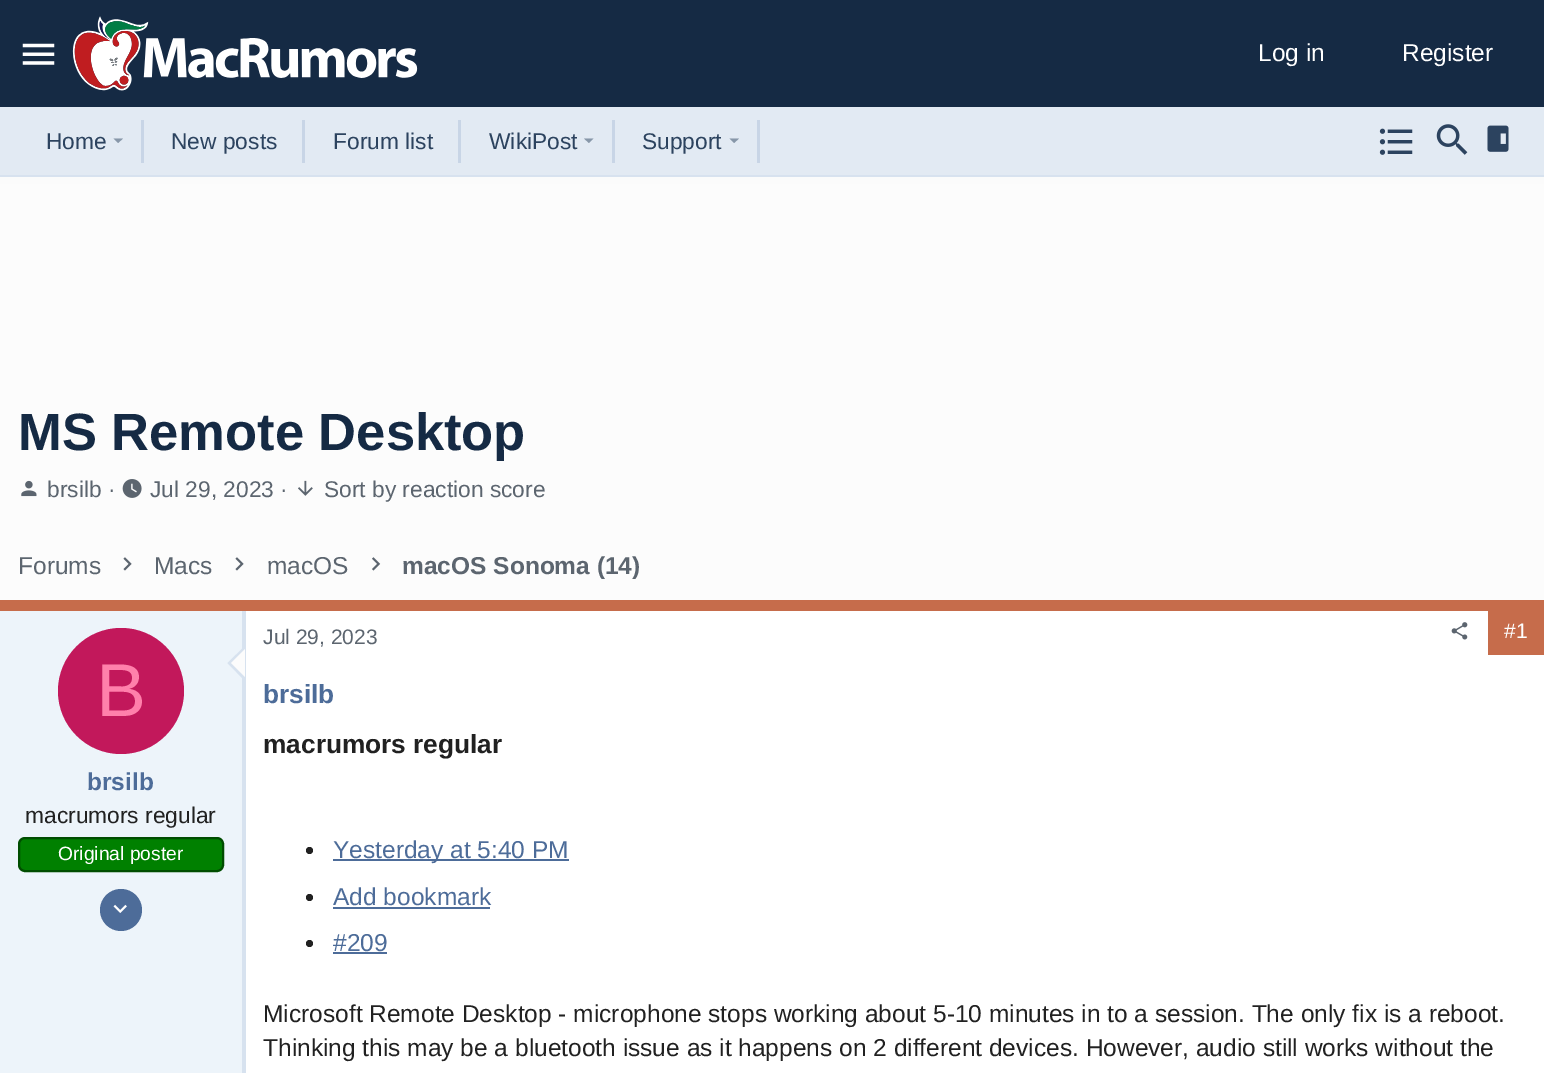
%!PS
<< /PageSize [1544 1073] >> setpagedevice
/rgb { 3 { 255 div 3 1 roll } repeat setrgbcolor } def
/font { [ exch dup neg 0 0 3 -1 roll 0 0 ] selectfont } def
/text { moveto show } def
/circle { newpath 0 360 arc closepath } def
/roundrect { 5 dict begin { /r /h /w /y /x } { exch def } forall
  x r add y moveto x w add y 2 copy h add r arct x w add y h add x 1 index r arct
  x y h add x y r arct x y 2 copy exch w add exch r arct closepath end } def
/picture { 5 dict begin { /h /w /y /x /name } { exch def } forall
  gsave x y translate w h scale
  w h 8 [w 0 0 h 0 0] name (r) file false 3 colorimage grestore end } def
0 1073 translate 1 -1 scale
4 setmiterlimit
255 255 255 rgb
0 0 1544 1073 rectfill
gsave 0 177 moveto 1544 0 rlineto 0 423 rlineto -1544 0 rlineto closepath clip newpath
<< /ShadingType 2 /ColorSpace /DeviceRGB /Coords [773 0 773 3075] /Extend [true true] /Function << /FunctionType 3 /Domain [0 1] /Functions [<< /FunctionType 2 /Domain [0 1] /C0 [0.804 0.851 0.922] /C1 [0.988 0.988 0.988] /N 1 >> << /FunctionType 2 /Domain [0 1] /C0 [0.988 0.988 0.988] /C1 [0.988 0.988 0.988] /N 1 >>] /Bounds [0.06] /Encode [0 1 0 1] >> >> shfill grestore
21 42 68 rgb
0 0 1544 107 rectfill
(img_01.rgb) 22 43 33 22 picture
(img_02.rgb) 72 16 346 75 picture
226 234 243 rgb
0 107 1544 68 rectfill
215 226 239 rgb
0 175 1544 2 rectfill
200 213 230 rgb
141 120 3 43 rectfill
135 151 169 rgb
113.5 138.5 moveto 4.5 4.5 rlineto 5 -4.5 rlineto closepath fill
200 213 230 rgb
302 120 3 43 rectfill
458 120 3 43 rectfill
612 120 3 43 rectfill
135 151 169 rgb
584 138.5 moveto 5 4.5 rlineto 4.5 -4.5 rlineto closepath fill
200 213 230 rgb
757 120 3 43 rectfill
135 151 169 rgb
729.5 138.5 moveto 4.5 4.5 rlineto 5 -4.5 rlineto closepath fill
(img_03.rgb) 1379 128 34 27 picture
(img_04.rgb) 1436 124 32 31 picture
(img_05.rgb) 1487 125 22 27 picture
(img_06.rgb) 21 480 16 17 picture
(img_07.rgb) 122 479 20 19 picture
(img_08.rgb) 298 480 15 16 picture
(img_09.rgb) 123 557 9 14 picture
(img_09.rgb) 235 557 9 14 picture
(img_10.rgb) 372 557 9 14 picture
198 108 75 rgb
0 600 1544 11 rectfill
237 244 250 rgb
0 611 242 462 rectfill
215 226 239 rgb
242 611 4 462 rectfill
194 24 91 rgb
121 691 63 circle fill
215 226 239 rgb
245 646 moveto 0 35 rlineto -17.5 -18 rlineto closepath fill
252 252 252 rgb
245 649 moveto 0 28 rlineto -14 -14 rlineto closepath fill
0 128 0 rgb
19 838 204 33 6 roundrect gsave fill grestore
0 77 0 rgb
2 setlinewidth
stroke
77 108 153 rgb
121 910 21 circle fill
(img_11.rgb) 113 904 14 9 picture
(img_12.rgb) 1451 622 17 18 picture
198 108 75 rgb
1488 611 56 44 rectfill
33 33 33 rgb
309.5 850.5 3.5 circle fill
77 108 153 rgb
333 859 236 2 rectfill
33 33 33 rgb
309.5 897.5 3.5 circle fill
77 108 153 rgb
333 907 157 2 rectfill
33 33 33 rgb
309.5 943.5 3.5 circle fill
77 108 153 rgb
333 952 54 2 rectfill
/LiberationSans-Regular 24.5 font
255 255 255 rgb
(Log in) 1258 61 text
(Register) 1402 61 text
/LiberationSans-Regular 22.75 font
44 67 95 rgb
(Home) 46 149 text
(New posts) 171 149 text
(Forum list) 333 149 text
(WikiPost) 489 149 text
(Support) 642 149 text
/LiberationSans-Bold 52.5 font
21 42 68 rgb
(MS Remote Desktop) 18 450 text
/LiberationSans-Regular 22.75 font
92 101 111 rgb
(brsilb ·) 47 497 text
(Jul 29, 2023 ·) 150 497 text
(Sort by reaction score) 324 497 text
/LiberationSans-Regular 24.5 font
(Forums) 18 574 text
(Macs) 154 574 text
(macOS) 267 574 text
/LiberationSans-Bold 24.5 font
(macOS Sonoma \(14\)) 402 574 text
/LiberationSans-Regular 75 font
255 128 171 rgb
(B) 96 716 text
/LiberationSans-Bold 24.5 font
77 108 153 rgb
(brsilb) 87 790 text
/LiberationSans-Regular 22.75 font
33 33 33 rgb
(macrumors regular) 25 823 text
/LiberationSans-Regular 19.25 font
255 255 255 rgb
(Original poster) 58 860 text
/LiberationSans-Regular 21 font
92 101 111 rgb
(Jul 29, 2023) 263 644 text
255 255 255 rgb
(#1) 1504 638 text
/LiberationSans-Bold 26.25 font
77 108 153 rgb
(brsilb) 263 703 text
33 33 33 rgb
(macrumors regular) 263 753 text
/LiberationSans-Regular 24.5 font
77 108 153 rgb
(Yesterday at 5:40 PM) 333 858 text
(Add bookmark) 333 905 text
(#209) 333 951 text
33 33 33 rgb
(Microsoft Remote Desktop - microphone stops working about 5-10 minutes in to a session. The only fix is a reboot.) 263 1022 text
(Thinking this may be a bluetooth issue as it happens on 2 different devices. However, audio still works without the) 263 1056 text
showpage
